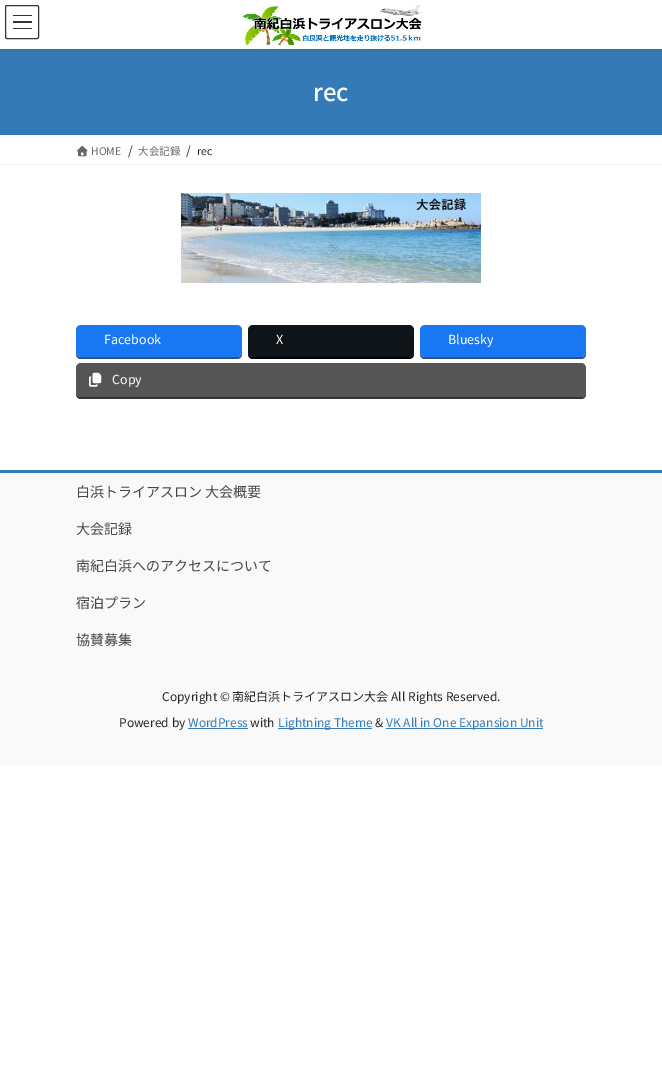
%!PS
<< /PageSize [662 1067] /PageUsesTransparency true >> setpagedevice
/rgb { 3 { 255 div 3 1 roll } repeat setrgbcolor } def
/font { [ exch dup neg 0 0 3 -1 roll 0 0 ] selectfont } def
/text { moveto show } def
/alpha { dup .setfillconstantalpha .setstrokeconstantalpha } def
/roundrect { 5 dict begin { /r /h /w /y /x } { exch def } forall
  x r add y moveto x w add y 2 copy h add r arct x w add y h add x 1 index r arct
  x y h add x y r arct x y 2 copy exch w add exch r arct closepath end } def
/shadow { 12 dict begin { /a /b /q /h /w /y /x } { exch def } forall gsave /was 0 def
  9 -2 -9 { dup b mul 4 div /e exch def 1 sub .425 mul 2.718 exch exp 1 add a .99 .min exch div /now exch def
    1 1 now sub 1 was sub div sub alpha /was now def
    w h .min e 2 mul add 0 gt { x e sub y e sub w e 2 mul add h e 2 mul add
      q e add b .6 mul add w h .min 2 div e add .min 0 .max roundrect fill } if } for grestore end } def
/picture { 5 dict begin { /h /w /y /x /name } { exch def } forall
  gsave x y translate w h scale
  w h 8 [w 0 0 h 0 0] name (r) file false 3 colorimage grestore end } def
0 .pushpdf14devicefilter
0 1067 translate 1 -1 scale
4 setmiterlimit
255 255 255 rgb
0 0 662 1067 rectfill
51 122 183 rgb
0 49 662 86 rectfill
gsave
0 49 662 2 rectclip
0 0 0 rgb
0 1 662 49 0 1.5 0.1 shadow
grestore
(img_01.rgb) 242 5 181 40 picture
51 51 51 rgb
13 15 19 1 rectfill
13 21 19 2 rectfill
13 28 19 1 rectfill
5.5 5.5 33 33 1.5 roundrect stroke
242 242 242 rgb
0 164 662 1 rectfill
(img_02.rgb) 77 145 11 12 picture
(img_03.rgb) 181 193 300 90 picture
52 78 132 rgb
76 352 moveto 0 2 rlineto 0 3 2 5 5 5 rcurveto 156 0 rlineto 3 0 5 -2 5 -5 rcurveto 0 -2 rlineto 0 3 -2 5 -5 5 rcurveto -156 0 rlineto -3 0 -5 -2 -5 -5 rcurveto closepath fill
24 119 242 rgb
76 325 166 32 5 roundrect fill
0 0 0 rgb
248 352 moveto 0 2 rlineto 0 3 2 5 5 5 rcurveto 156 0 rlineto 3 0 5 -2 5 -5 rcurveto 0 -2 rlineto 0 3 -2 5 -5 5 rcurveto -156 0 rlineto -3 0 -5 -2 -5 -5 rcurveto closepath fill
15 20 25 rgb
248 325 166 32 5 roundrect fill
52 78 132 rgb
420 352 moveto 0 2 rlineto 0 3 2 5 5 5 rcurveto 156 0 rlineto 3 0 5 -2 5 -5 rcurveto 0 -2 rlineto 0 3 -2 5 -5 5 rcurveto -156 0 rlineto -3 0 -5 -2 -5 -5 rcurveto closepath fill
24 119 242 rgb
420 325 166 32 5 roundrect fill
51 51 51 rgb
76 392 moveto 0 2 rlineto 0 3 2 5 5 5 rcurveto 500 0 rlineto 3 0 5 -2 5 -5 rcurveto 0 -2 rlineto 0 3 -2 5 -5 5 rcurveto -500 0 rlineto -3 0 -5 -2 -5 -5 rcurveto closepath fill
85 85 85 rgb
76 363 510 34 5 roundrect fill
(img_04.rgb) 89 372 13 15 picture
249 249 249 rgb
0 473 662 292 rectfill
51 122 183 rgb
0 470 662 3 rectfill
188 728 60 1 rectfill
278 728 94 1 rectfill
386 728 157 1 rectfill
/NotoSansJP-Medium 24 font
255 255 255 rgb
(rec) 313 101 text
/NotoSansJP-Regular 10.5 font
102 102 102 rgb
(HOME) 91 155 text
/NotoSansJP-Regular 12 font
33 37 41 rgb
(/) 128 155 text
/NotoSansJP-Regular 10.5 font
102 102 102 rgb
(大会記録) 138 155 text
/NotoSansJP-Regular 12 font
33 37 41 rgb
(/) 186 155 text
/NotoSansJP-Regular 10.5 font
(rec) 197 155 text
/NotoSansJP-Regular 12.5 font
255 255 255 rgb
(Facebook) 104 344 text
(X) 276 344 text
(Bluesky) 448 344 text
(Copy) 112 384 text
/NotoSansJP-Regular 14 font
70 70 70 rgb
(白浜トライアスロン 大会概要) 76 497 text
(大会記録) 76 534 text
(南紀白浜へのアクセスについて) 76 571 text
(宿泊プラン) 76 608 text
(協賛募集) 76 645 text
/NotoSansJP-Regular 12 font
33 37 41 rgb
(Copyright © 南紀白浜トライアスロン大会 All Rights Reserved.) 162 701 text
(Powered by) 119 727 text
51 122 183 rgb
(WordPress) 188 727 text
33 37 41 rgb
(with) 250 727 text
51 122 183 rgb
(Lightning Theme) 278 727 text
33 37 41 rgb
(&) 375 727 text
51 122 183 rgb
(VK All in One Expansion Unit) 386 727 text
.poppdf14devicefilter showpage
